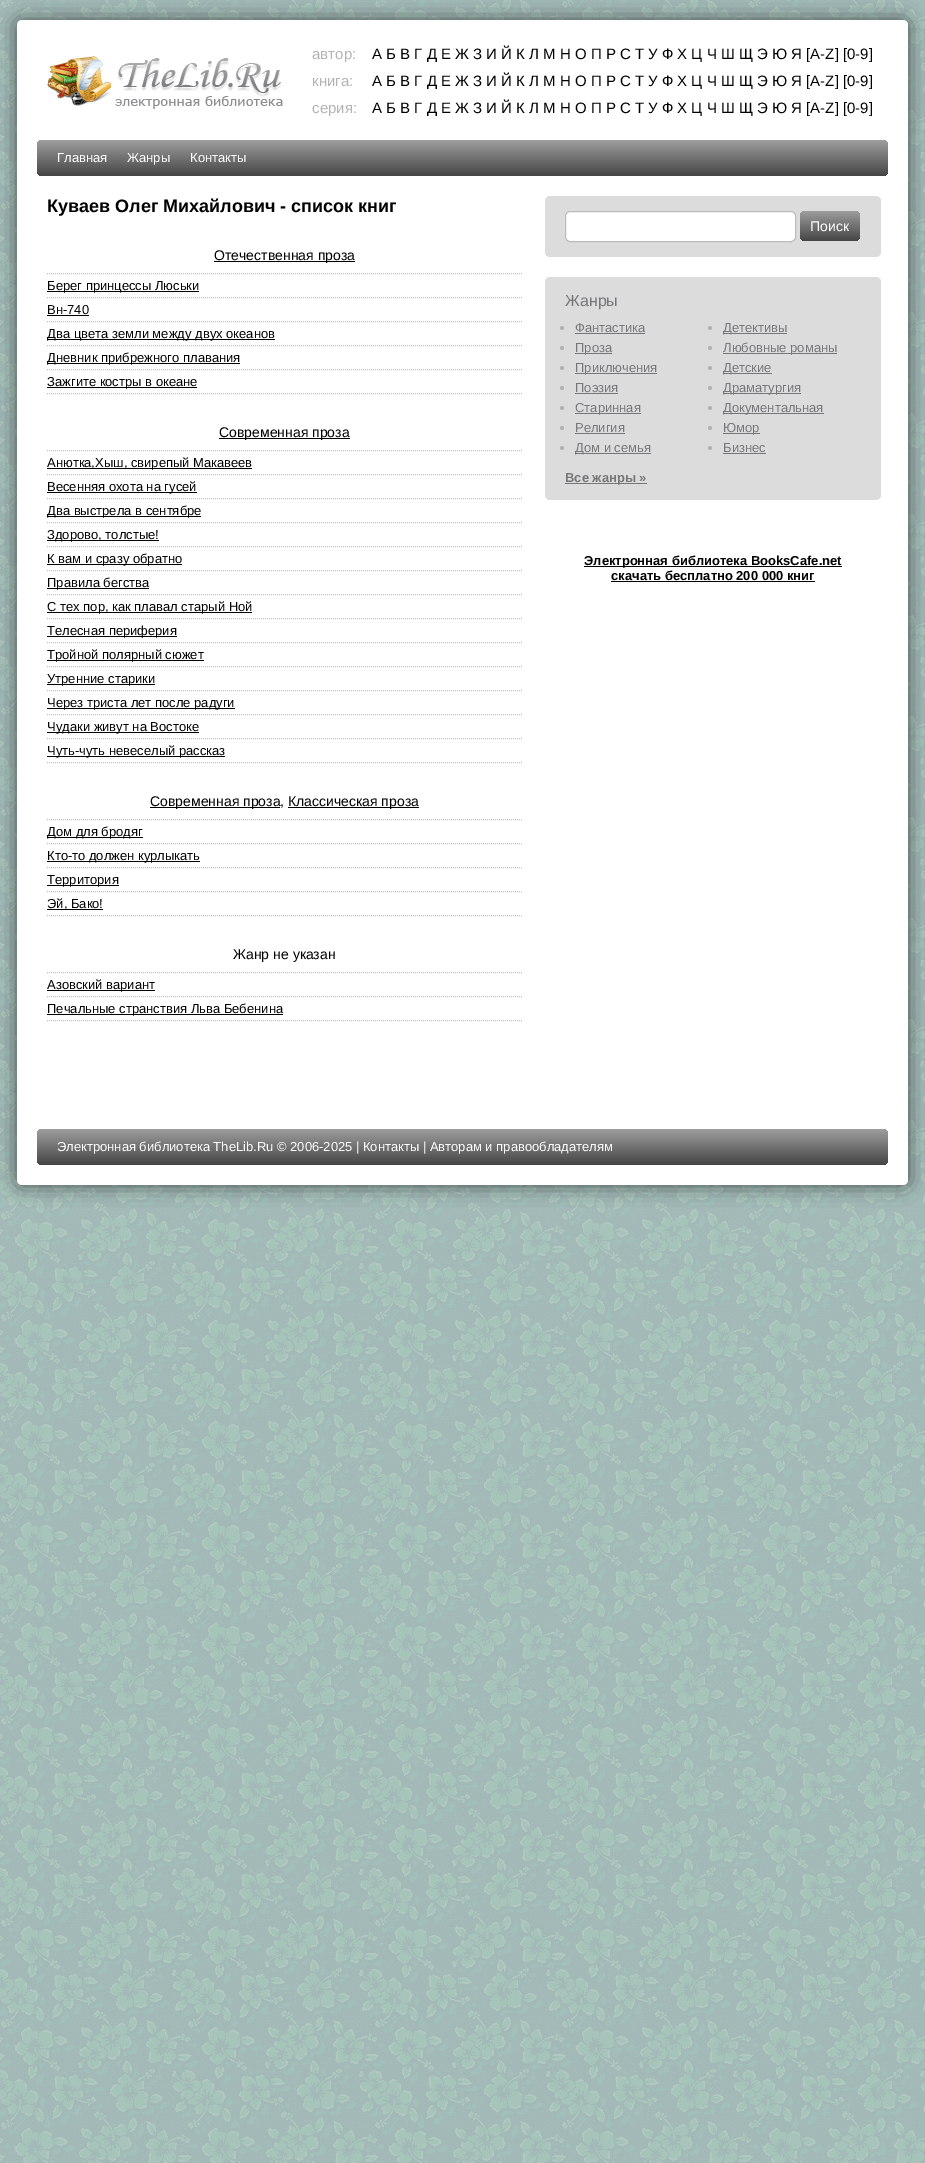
%!PS
<< /PageSize [925 2163] /PageUsesTransparency true >> setpagedevice
/rgb { 3 { 255 div 3 1 roll } repeat setrgbcolor } def
/font { [ exch dup neg 0 0 3 -1 roll 0 0 ] selectfont } def
/text { moveto show } def
/alpha { dup .setfillconstantalpha .setstrokeconstantalpha } def
/circle { newpath 0 360 arc closepath } def
/roundrect { 5 dict begin { /r /h /w /y /x } { exch def } forall
  x r add y moveto x w add y 2 copy h add r arct x w add y h add x 1 index r arct
  x y h add x y r arct x y 2 copy exch w add exch r arct closepath end } def
/shadow { 12 dict begin { /a /b /q /h /w /y /x } { exch def } forall gsave /was 0 def
  9 -2 -9 { dup b mul 4 div /e exch def 1 sub .425 mul 2.718 exch exp 1 add a .99 .min exch div /now exch def
    1 1 now sub 1 was sub div sub alpha /was now def
    w h .min e 2 mul add 0 gt { x e sub y e sub w e 2 mul add h e 2 mul add
      q e add b .6 mul add w h .min 2 div e add .min 0 .max roundrect fill } if } for grestore end } def
/picture { 5 dict begin { /h /w /y /x /name } { exch def } forall
  gsave x y translate w h scale
  w h 8 [w 0 0 h 0 0] name (r) file false 3 colorimage grestore end } def
0 .pushpdf14devicefilter
0 2163 translate 1 -1 scale
4 setmiterlimit
255 255 255 rgb
0 0 925 2163 rectfill
(img_01.rgb) 0 0 925 2163 picture
0 0 0 rgb
17 20 891 1165 5 10 0.6 shadow
255 255 255 rgb
17 20 891 1165 5 roundrect fill
(img_02.rgb) 47 56 236 53 picture
gsave 37 140 851 36 5 roundrect clip newpath
<< /ShadingType 2 /ColorSpace /DeviceRGB /Coords [463 140 463 176] /Extend [true true] /Function << /FunctionType 2 /Domain [0 1] /C0 [0.62 0.62 0.62] /C1 [0.271 0.271 0.271] /N 1 >> >> shfill grestore
0 0 0 rgb
214 261 141 1 rectfill
192 192 192 rgb
[1 1] 0 setdash
47 273.5 moveto 475 0 rlineto stroke
47 297.5 moveto 475 0 rlineto stroke
0 0 0 rgb
47 291 152 1 rectfill
192 192 192 rgb
47 321.5 moveto 475 0 rlineto stroke
0 0 0 rgb
47 315 42 1 rectfill
192 192 192 rgb
47 345.5 moveto 475 0 rlineto stroke
0 0 0 rgb
47 339 228 1 rectfill
192 192 192 rgb
47 369.5 moveto 475 0 rlineto stroke
0 0 0 rgb
47 363 193 1 rectfill
192 192 192 rgb
47 393.5 moveto 475 0 rlineto stroke
0 0 0 rgb
47 387 150 1 rectfill
219 438 131 1 rectfill
192 192 192 rgb
47 450.5 moveto 475 0 rlineto stroke
47 474.5 moveto 475 0 rlineto stroke
0 0 0 rgb
47 468 205 1 rectfill
192 192 192 rgb
47 498.5 moveto 475 0 rlineto stroke
0 0 0 rgb
47 492 150 1 rectfill
192 192 192 rgb
47 522.5 moveto 475 0 rlineto stroke
0 0 0 rgb
47 516 154 1 rectfill
192 192 192 rgb
47 546.5 moveto 475 0 rlineto stroke
0 0 0 rgb
47 540 112 1 rectfill
192 192 192 rgb
47 570.5 moveto 475 0 rlineto stroke
0 0 0 rgb
47 564 135 1 rectfill
192 192 192 rgb
47 594.5 moveto 475 0 rlineto stroke
0 0 0 rgb
47 588 102 1 rectfill
192 192 192 rgb
47 618.5 moveto 475 0 rlineto stroke
0 0 0 rgb
47 612 205 1 rectfill
192 192 192 rgb
47 642.5 moveto 475 0 rlineto stroke
0 0 0 rgb
47 636 130 1 rectfill
192 192 192 rgb
47 666.5 moveto 475 0 rlineto stroke
0 0 0 rgb
47 660 157 1 rectfill
192 192 192 rgb
47 690.5 moveto 475 0 rlineto stroke
0 0 0 rgb
47 684 108 1 rectfill
192 192 192 rgb
47 714.5 moveto 475 0 rlineto stroke
0 0 0 rgb
47 708 188 1 rectfill
192 192 192 rgb
47 738.5 moveto 475 0 rlineto stroke
0 0 0 rgb
47 732 152 1 rectfill
192 192 192 rgb
47 762.5 moveto 475 0 rlineto stroke
0 0 0 rgb
47 756 178 1 rectfill
150 807 130 1 rectfill
288 807 131 1 rectfill
192 192 192 rgb
47 819.5 moveto 475 0 rlineto stroke
47 843.5 moveto 475 0 rlineto stroke
0 0 0 rgb
47 837 96 1 rectfill
192 192 192 rgb
47 867.5 moveto 475 0 rlineto stroke
0 0 0 rgb
47 861 153 1 rectfill
192 192 192 rgb
47 891.5 moveto 475 0 rlineto stroke
0 0 0 rgb
47 885 72 1 rectfill
192 192 192 rgb
47 915.5 moveto 475 0 rlineto stroke
0 0 0 rgb
47 909 56 1 rectfill
192 192 192 rgb
47 972.5 moveto 475 0 rlineto stroke
47 996.5 moveto 475 0 rlineto stroke
0 0 0 rgb
47 990 108 1 rectfill
192 192 192 rgb
47 1020.5 moveto 475 0 rlineto stroke
0 0 0 rgb
47 1014 236 1 rectfill
220 220 220 rgb
545 196 336 61 5 roundrect fill
255 255 255 rgb
565.5 211.5 230 30 4.5 roundrect gsave fill grestore
188 187 187 rgb
[] 0 setdash
stroke
gsave 800 211 60 30 5 roundrect clip newpath
<< /ShadingType 2 /ColorSpace /DeviceRGB /Coords [830 211 830 241] /Extend [true true] /Function << /FunctionType 2 /Domain [0 1] /C0 [0.62 0.62 0.62] /C1 [0.271 0.271 0.271] /N 1 >> >> shfill grestore
220 220 220 rgb
545 277 336 223 5 roundrect fill
179 179 179 rgb
562 328 2 circle fill
116 118 121 rgb
575 333 70 1 rectfill
179 179 179 rgb
710 328 2 circle fill
116 118 121 rgb
723 333 64 1 rectfill
179 179 179 rgb
562 348 2 circle fill
116 118 121 rgb
575 353 37 1 rectfill
179 179 179 rgb
710 348 2 circle fill
116 118 121 rgb
723 353 114 1 rectfill
179 179 179 rgb
562 368 2 circle fill
116 118 121 rgb
575 373 82 1 rectfill
179 179 179 rgb
710 368 2 circle fill
116 118 121 rgb
723 373 49 1 rectfill
179 179 179 rgb
562 388 2 circle fill
116 118 121 rgb
575 393 43 1 rectfill
179 179 179 rgb
710 388 2 circle fill
116 118 121 rgb
723 393 78 1 rectfill
179 179 179 rgb
562 408 2 circle fill
116 118 121 rgb
575 413 66 1 rectfill
179 179 179 rgb
710 408 2 circle fill
116 118 121 rgb
723 413 101 1 rectfill
179 179 179 rgb
562 428 2 circle fill
116 118 121 rgb
575 433 50 1 rectfill
179 179 179 rgb
710 428 2 circle fill
116 118 121 rgb
723 433 37 1 rectfill
179 179 179 rgb
562 448 2 circle fill
116 118 121 rgb
575 453 76 1 rectfill
179 179 179 rgb
710 448 2 circle fill
116 118 121 rgb
723 453 43 1 rectfill
565 483 82 1 rectfill
0 0 0 rgb
584 566 258 1 rectfill
611 581 204 1 rectfill
gsave 37 1129 851 36 5 roundrect clip newpath
<< /ShadingType 2 /ColorSpace /DeviceRGB /Coords [463 1129 463 1165] /Extend [true true] /Function << /FunctionType 2 /Domain [0 1] /C0 [0.62 0.62 0.62] /C1 [0.271 0.271 0.271] /N 1 >> >> shfill grestore
/LiberationSans-Regular 15 font
179 179 179 rgb
(автор:) 312 59 text
0 0 0 rgb
(А Б В Г Д Е Ж З И Й К Л М Н О П Р С Т У Ф Х Ц Ч Ш Щ Э Ю Я [A-Z] [0-9]) 372 59 text
179 179 179 rgb
(книга:) 312 86 text
0 0 0 rgb
(А Б В Г Д Е Ж З И Й К Л М Н О П Р С Т У Ф Х Ц Ч Ш Щ Э Ю Я [A-Z] [0-9]) 372 86 text
179 179 179 rgb
(серия:) 312 113 text
0 0 0 rgb
(А Б В Г Д Е Ж З И Й К Л М Н О П Р С Т У Ф Х Ц Ч Ш Щ Э Ю Я [A-Z] [0-9]) 372 113 text
/LiberationSans-Regular 13 font
255 255 255 rgb
(Главная) 57 162 text
(Жанры) 127 162 text
(Контакты) 190 162 text
/LiberationSans-Bold 18 font
0 0 0 rgb
(Куваев Олег Михайлович - список книг) 47 212 text
/LiberationSans-Regular 14 font
(Отечественная проза) 214 260 text
/LiberationSans-Regular 13 font
(Берег принцессы Люськи) 47 290 text
(Вн-740) 47 314 text
(Два цвета земли между двух океанов) 47 338 text
(Дневник прибрежного плавания) 47 362 text
(Зажгите костры в океане) 47 386 text
/LiberationSans-Regular 14 font
(Современная проза) 219 437 text
/LiberationSans-Regular 13 font
(Анютка,Хыш, свирепый Макавеев) 47 467 text
(Весенняя охота на гусей) 47 491 text
(Два выстрела в сентябре) 47 515 text
(Здорово, толстые!) 47 539 text
(К вам и сразу обратно) 47 563 text
(Правила бегства) 47 587 text
(С тех пор, как плавал старый Ной) 47 611 text
(Телесная периферия) 47 635 text
(Тройной полярный сюжет) 47 659 text
(Утренние старики) 47 683 text
(Через триста лет после радуги) 47 707 text
(Чудаки живут на Востоке) 47 731 text
(Чуть-чуть невеселый рассказ) 47 755 text
/LiberationSans-Regular 14 font
(Современная проза,) 150 806 text
(Классическая проза) 288 806 text
/LiberationSans-Regular 13 font
(Дом для бродяг) 47 836 text
(Кто-то должен курлыкать) 47 860 text
(Территория) 47 884 text
(Эй, Бако!) 47 908 text
/LiberationSans-Regular 14 font
(Жанр не указан) 233 959 text
/LiberationSans-Regular 13 font
(Азовский вариант) 47 989 text
(Печальные странствия Льва Бебенина) 47 1013 text
/LiberationSans-Regular 14 font
255 255 255 rgb
(Поиск) 810 231 text
/LiberationSans-Regular 16 font
116 118 121 rgb
(Жанры) 565 306 text
/LiberationSans-Regular 13 font
(Фантастика) 575 332 text
(Детективы) 723 332 text
(Проза) 575 352 text
(Любовные романы) 723 352 text
(Приключения) 575 372 text
(Детские) 723 372 text
(Поэзия) 575 392 text
(Драматургия) 723 392 text
(Старинная) 575 412 text
(Документальная) 723 412 text
(Религия) 575 432 text
(Юмор) 723 432 text
(Дом и семья) 575 452 text
(Бизнес) 723 452 text
/LiberationSans-Bold 13 font
(Все жанры ») 565 482 text
0 0 0 rgb
(Электронная библиотека BooksCafe.net) 584 565 text
(скачать бесплатно 200 000 книг) 611 580 text
/LiberationSans-Regular 13 font
255 255 255 rgb
(Электронная библиотека TheLib.Ru © 2006-2025 | Контакты | Авторам и правообладателям) 57 1151 text
.poppdf14devicefilter showpage
